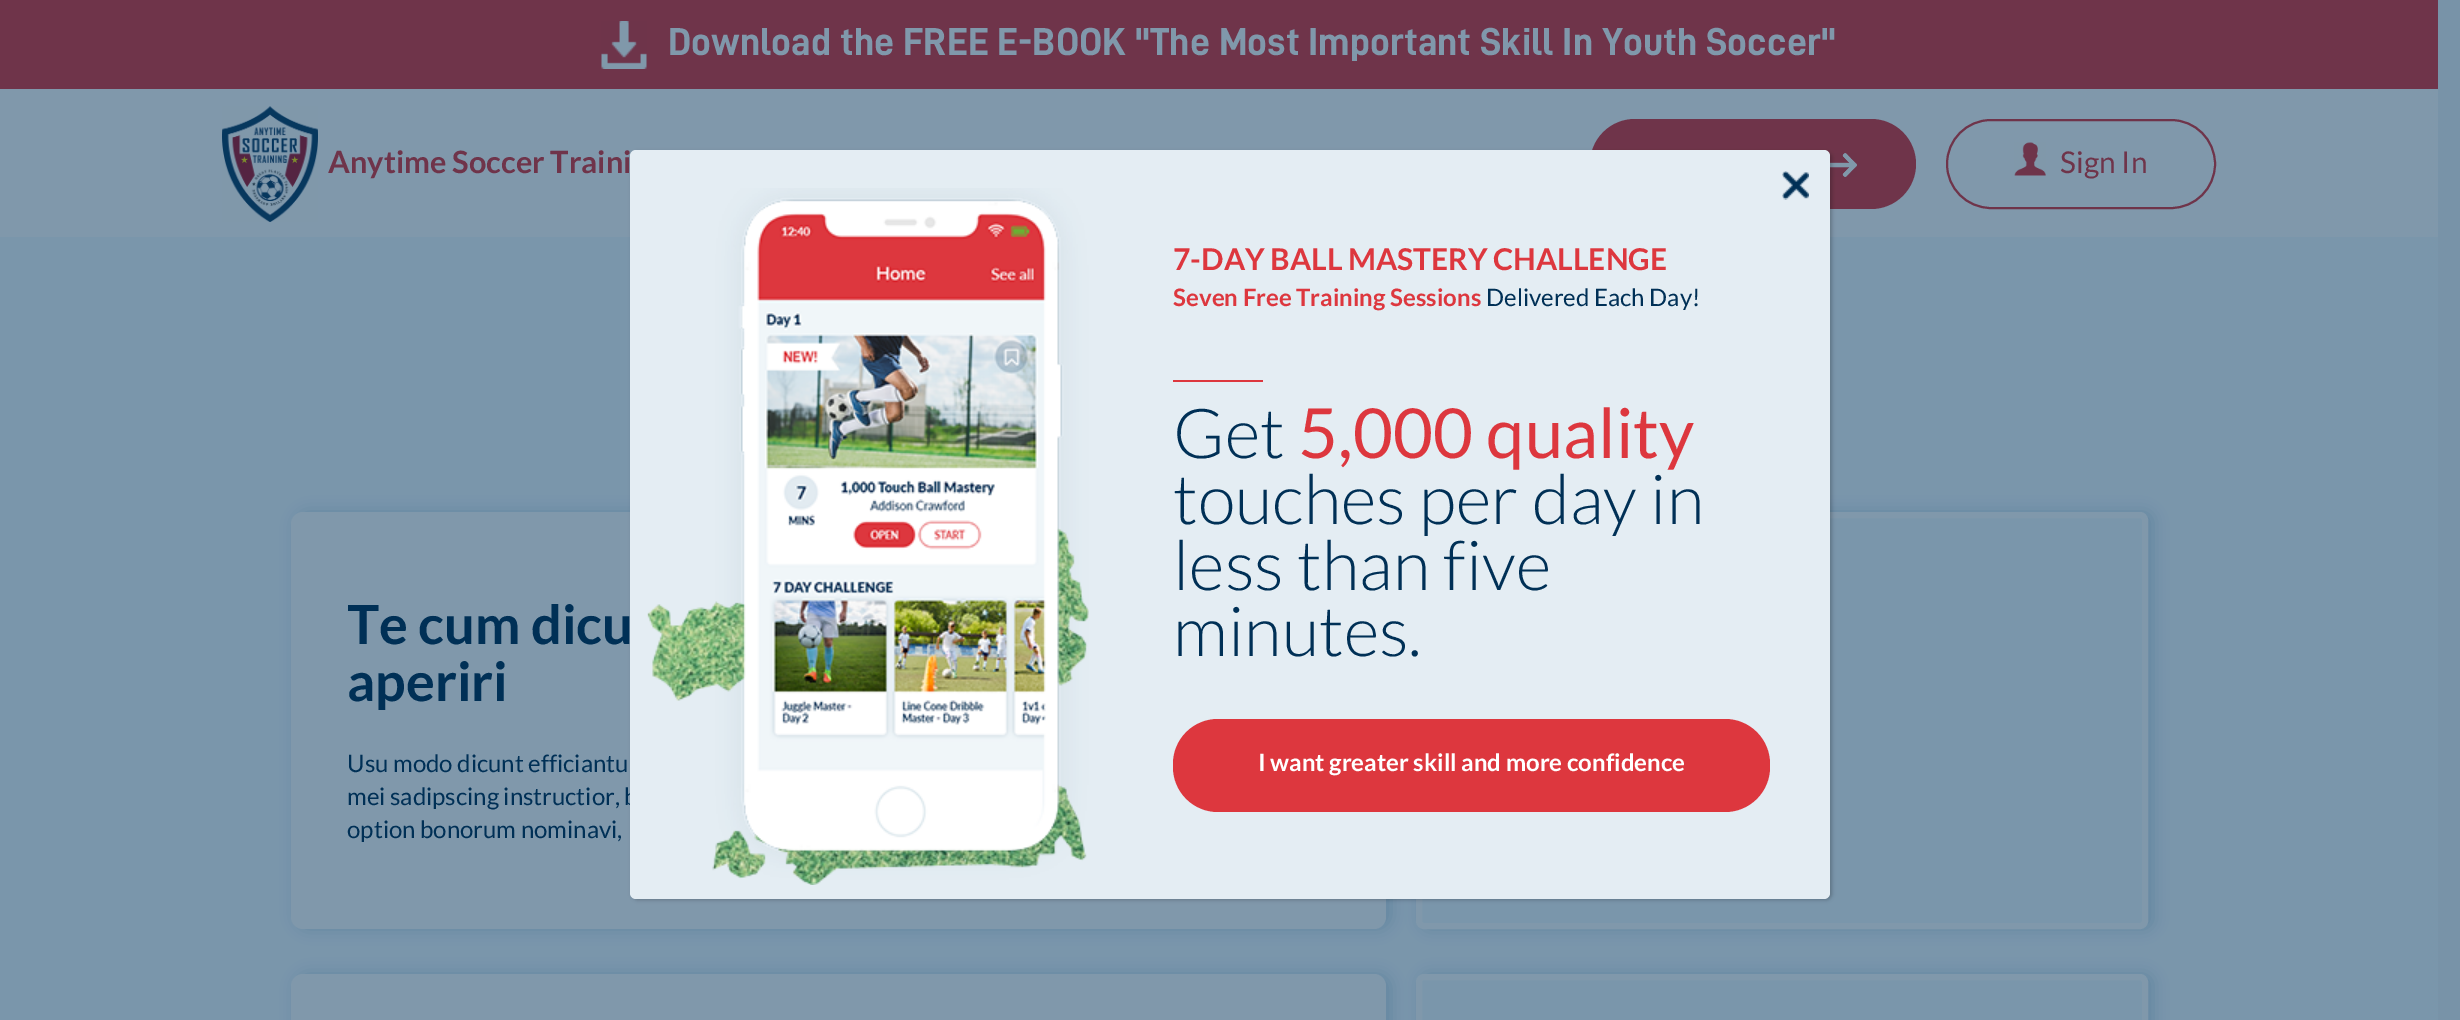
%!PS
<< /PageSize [2460 1020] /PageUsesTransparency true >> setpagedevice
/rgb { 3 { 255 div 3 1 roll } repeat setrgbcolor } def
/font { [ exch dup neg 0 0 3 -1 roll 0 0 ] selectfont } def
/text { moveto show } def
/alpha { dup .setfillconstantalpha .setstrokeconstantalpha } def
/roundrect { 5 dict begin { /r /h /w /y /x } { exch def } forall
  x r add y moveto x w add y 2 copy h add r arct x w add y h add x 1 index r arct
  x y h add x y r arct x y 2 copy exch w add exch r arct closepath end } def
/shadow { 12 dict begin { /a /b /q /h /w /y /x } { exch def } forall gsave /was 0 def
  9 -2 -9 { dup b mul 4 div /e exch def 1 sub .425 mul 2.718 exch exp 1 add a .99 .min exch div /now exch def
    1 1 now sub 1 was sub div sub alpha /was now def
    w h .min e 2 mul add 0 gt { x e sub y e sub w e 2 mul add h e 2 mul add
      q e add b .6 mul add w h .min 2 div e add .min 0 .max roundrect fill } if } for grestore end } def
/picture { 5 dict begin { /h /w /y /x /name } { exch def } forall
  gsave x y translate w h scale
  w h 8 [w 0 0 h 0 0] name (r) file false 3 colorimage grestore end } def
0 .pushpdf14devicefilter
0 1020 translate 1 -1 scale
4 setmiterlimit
120 147 168 rgb
0 0 2460 1020 rectfill
111 52 74 rgb
0 0 2438 89 rectfill
(img_01.rgb) 601 21 46 48 picture
128 152 171 rgb
0 89 2438 148 rectfill
(img_02.rgb) 222 106 96 116 picture
111 52 74 rgb
1590 119 326 90 45 roundrect fill
(img_03.rgb) 1830 153 27 24 picture
2 setlinewidth
1947 120 268 88 44 roundrect stroke
(img_04.rgb) 2014 142 32 34 picture
122 150 171 rgb
0 237 2438 783 rectfill
99 134 160 rgb
296 512 1095 417 12 7.5 1 shadow
128 152 171 rgb
291 512 1095 417 12 roundrect fill
gsave
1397 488 moveto 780 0 rlineto 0 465 rlineto -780 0 rlineto closepath 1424 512 moveto 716 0 rlineto 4.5 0 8 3.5 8 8 rcurveto 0 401 rlineto 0 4.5 -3.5 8 -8 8 rcurveto -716 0 rlineto -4.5 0 -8 -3.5 -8 -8 rcurveto 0 -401 rlineto 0 -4.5 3.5 -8 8 -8 rcurveto closepath eoclip newpath
99 134 160 rgb
1421 512 732 417 8 7.5 1 shadow
grestore
6 setlinewidth
1419 515 726 411 5 roundrect stroke
99 134 160 rgb
296 974 1095 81 12 7.5 1 shadow
128 152 171 rgb
291 974 1095 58 12 roundrect fill
gsave
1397 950 moveto 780 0 rlineto 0 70 rlineto -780 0 rlineto closepath 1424 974 moveto 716 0 rlineto 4.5 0 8 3.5 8 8 rcurveto 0 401 rlineto 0 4.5 -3.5 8 -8 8 rcurveto -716 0 rlineto -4.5 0 -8 -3.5 -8 -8 rcurveto 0 -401 rlineto 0 -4.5 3.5 -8 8 -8 rcurveto closepath eoclip newpath
99 134 160 rgb
1421 974 732 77 8 7.5 1 shadow
grestore
1419 977 726 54 5 roundrect stroke
2 2 2 rgb
632 152 1200 748 6 2 0.23 shadow
/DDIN-Bold 39 font
128 152 171 rgb
(Download the FREE E-BOOK "The Most Important Skill In Youth Soccer") 668 55 text
/Lato-Bold 30.75 font
111 52 74 rgb
(Anytime Soccer Traini) 328 173 text
/Lato-Regular 30 font
(Sign In) 2060 173 text
gsave
348 596 981 114 rectclip
/Lato-Bold 54 font
0 48 86 rgb
(Te cum dicu) 347 644 text
(aperiri) 347 701 text
grestore
/Lato-Regular 24 font
0 48 86 rgb
(Usu modo dicunt efficiantu) 347 772 text
(mei sadipscing instructior, b) 347 805 text
(option bonorum nominavi,) 347 838 text
228 237 243 rgb
630 150 1200 749 6 roundrect fill
(img_05.rgb) 1782 171 27 29 picture
(img_06.rgb) 647 188 442 697 picture
/Lato-Bold 30 font
221 55 62 rgb
(7-DAY BALL MASTERY CHALLENGE) 1173 270 text
/Lato-Bold 24 font
(Seven Free Training Sessions) 1173 306 text
/Lato-Regular 24 font
0 48 86 rgb
(Delivered Each Day!) 1486 306 text
221 55 62 rgb
1173 380 90 2 rectfill
/Lato-Light 69 font
0 48 86 rgb
(Get) 1173 458 text
/Lato-Regular 69 font
221 55 62 rgb
(5,000 quality) 1298 458 text
/Lato-Light 69 font
0 48 86 rgb
(touches per day in) 1173 524 text
(less than five) 1173 590 text
(minutes.) 1173 656 text
221 55 62 rgb
1173 719 597 93 45 roundrect fill
/Lato-Bold 24 font
255 255 255 rgb
(I want greater skill and more confidence) 1258 771 text
.poppdf14devicefilter showpage
